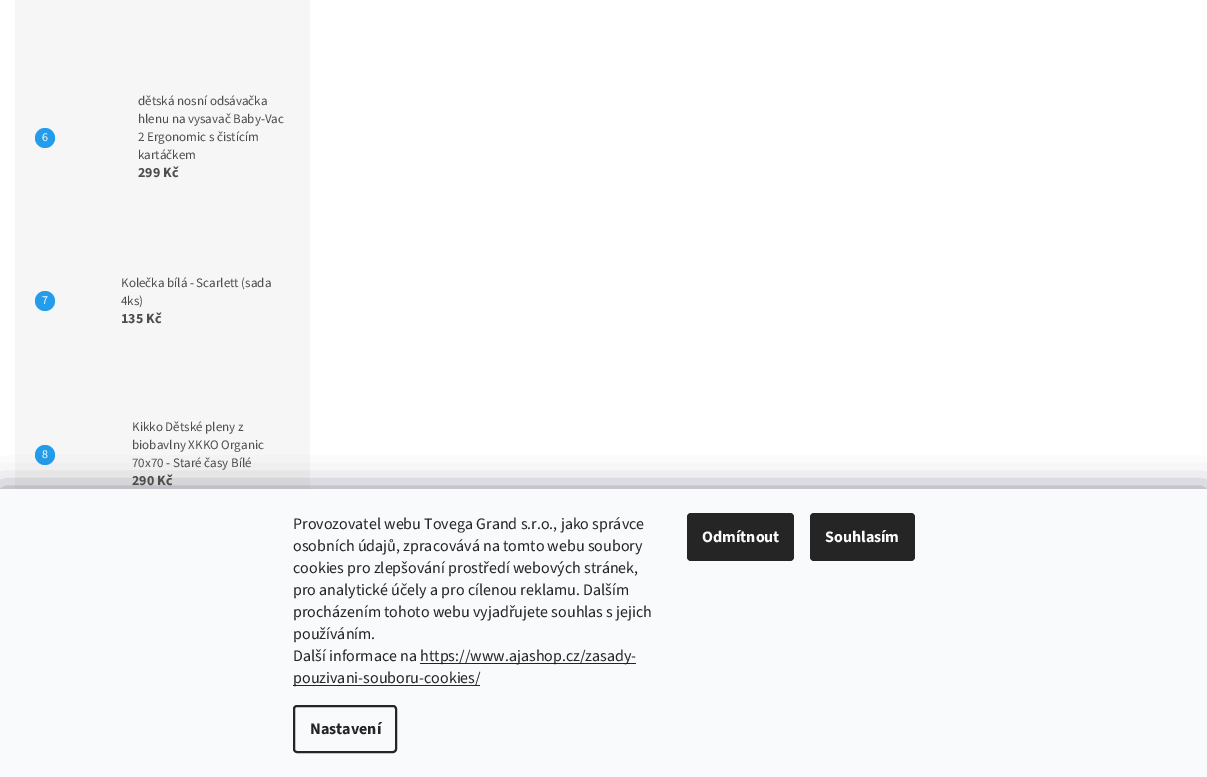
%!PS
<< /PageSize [1207 777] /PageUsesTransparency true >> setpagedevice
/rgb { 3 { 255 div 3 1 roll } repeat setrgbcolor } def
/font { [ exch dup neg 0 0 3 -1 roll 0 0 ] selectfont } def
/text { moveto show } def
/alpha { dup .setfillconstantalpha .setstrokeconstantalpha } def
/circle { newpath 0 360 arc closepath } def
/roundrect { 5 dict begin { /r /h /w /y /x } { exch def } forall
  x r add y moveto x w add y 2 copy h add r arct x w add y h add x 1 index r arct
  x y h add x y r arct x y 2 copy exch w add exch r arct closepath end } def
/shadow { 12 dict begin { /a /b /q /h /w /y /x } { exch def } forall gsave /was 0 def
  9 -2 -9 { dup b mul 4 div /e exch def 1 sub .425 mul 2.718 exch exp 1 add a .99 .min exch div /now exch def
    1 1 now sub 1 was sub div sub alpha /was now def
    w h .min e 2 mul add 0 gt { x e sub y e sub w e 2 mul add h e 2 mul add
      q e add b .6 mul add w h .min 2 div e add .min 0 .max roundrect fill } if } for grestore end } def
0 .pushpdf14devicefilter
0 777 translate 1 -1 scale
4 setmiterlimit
255 255 255 rgb
0 0 1207 777 rectfill
246 246 246 rgb
15 0 295 489 rectfill
35 156 235 rgb
45 138 10 circle fill
45 301 10 circle fill
45 455 10 circle fill
27 25 57 rgb
0 489 1207 288 0 15 0.5 shadow
248 250 251 rgb
0 489 1207 288 rectfill
37 37 37 rgb
420 663 216 1 rectfill
293 685 187 1 rectfill
2 setlinewidth
294 706 102 46 3 roundrect stroke
687 513 107 48 4 roundrect fill
810 513 105 48 4 roundrect fill
/SourceSans3-Regular 12 font
255 255 255 rgb
(6) 42 141 text
/SourceSans3-Regular 13 font
77 77 77 rgb
(dětská nosní odsávačka) 138 105 text
(hlenu na vysavač Baby-Vac) 138 123 text
(2 Ergonomic s čistícím) 138 141 text
(kartáčkem) 138 159 text
/SourceSans3-Bold 14 font
(299 Kč) 138 177 text
/SourceSans3-Regular 12 font
255 255 255 rgb
(7) 42 304 text
/SourceSans3-Regular 13 font
77 77 77 rgb
(Kolečka bílá - Scarlett \(sada) 121 287 text
(4ks\)) 121 305 text
/SourceSans3-Bold 14 font
(135 Kč) 121 323 text
/SourceSans3-Regular 12 font
255 255 255 rgb
(8) 42 458 text
/SourceSans3-Regular 13 font
77 77 77 rgb
(Kikko Dětské pleny z) 132 431 text
(biobavlny XKKO Organic) 132 449 text
(70x70 - Staré časy Bílé) 132 467 text
/SourceSans3-Bold 14 font
(290 Kč) 132 485 text
/SourceSans3-Regular 16 font
37 37 37 rgb
(Provozovatel webu Tovega Grand s.r.o., jako správce) 293 529 text
(osobních údajů, zpracovává na tomto webu soubory) 293 551 text
(cookies pro zlepšování prostředí webových stránek,) 293 573 text
(pro analytické účely a pro cílenou reklamu. Dalším) 293 595 text
(procházením tohoto webu vyjadřujete souhlas s jejich) 293 617 text
(používáním.) 293 639 text
(Další informace na) 293 661 text
(https://www.ajashop.cz/zasady-) 420 661 text
(pouzivani-souboru-cookies/) 293 683 text
/SourceSans3-Bold 16 font
(Nastavení) 310 734 text
248 250 251 rgb
(Odmítnout) 702 542 text
(Souhlasím) 825 542 text
.poppdf14devicefilter showpage
